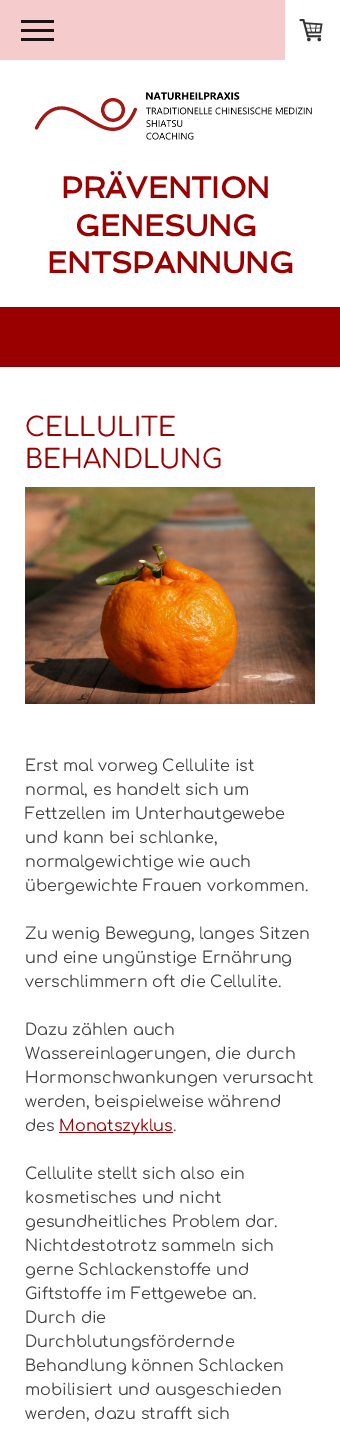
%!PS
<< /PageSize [340 1432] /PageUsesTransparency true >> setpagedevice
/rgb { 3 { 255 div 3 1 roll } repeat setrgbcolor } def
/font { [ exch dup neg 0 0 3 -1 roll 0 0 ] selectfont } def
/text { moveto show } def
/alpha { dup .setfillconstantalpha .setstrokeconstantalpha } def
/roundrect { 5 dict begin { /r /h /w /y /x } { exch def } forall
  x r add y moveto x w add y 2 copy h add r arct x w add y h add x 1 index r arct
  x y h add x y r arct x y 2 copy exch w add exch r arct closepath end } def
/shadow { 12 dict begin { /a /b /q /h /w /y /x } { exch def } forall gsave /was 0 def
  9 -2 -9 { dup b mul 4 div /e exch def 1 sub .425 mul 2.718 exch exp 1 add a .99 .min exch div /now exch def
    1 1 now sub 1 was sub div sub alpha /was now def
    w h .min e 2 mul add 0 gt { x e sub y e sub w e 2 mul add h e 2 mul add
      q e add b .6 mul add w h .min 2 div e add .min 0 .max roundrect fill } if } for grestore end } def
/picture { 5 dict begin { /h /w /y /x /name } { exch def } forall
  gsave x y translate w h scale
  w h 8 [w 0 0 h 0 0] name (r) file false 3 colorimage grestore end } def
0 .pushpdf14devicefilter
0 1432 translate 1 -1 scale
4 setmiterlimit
255 255 255 rgb
0 0 340 1432 rectfill
155 0 0 rgb
0 307 340 60 rectfill
245 204 203 rgb
0 0 340 60 rectfill
25 20 20 rgb
21 29 33 3 rectfill
21 20 33 3 rectfill
21 38 33 3 rectfill
255 255 255 rgb
285 0 55 60 1 roundrect fill
(img_01.rgb) 299 19 24 23 picture
(img_02.rgb) 34 92 278 48 picture
0 0 0 rgb
-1 369 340 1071 0 2.5 0.44 shadow
255 255 255 rgb
0 367 340 1065 rectfill
(img_03.rgb) 25 487 290 217 picture
155 0 0 rgb
59 1132 114 1 rectfill
/Spinnaker-Bold 30 font
(PRÄVENTION) 61 198 text
(GENESUNG) 75 236 text
(ENTSPANNUNG) 47 273 text
/Comfortaa-Regular 26 font
(CELLULITE) 25 436 text
(BEHANDLUNG) 25 468 text
/Comfortaa-Regular 16 font
68 68 68 rgb
(Erst mal vorweg Cellulite ist) 25 771 text
(normal, es handelt sich um) 25 795 text
(Fettzellen im Unterhautgewebe) 25 819 text
(und kann bei schlanke,) 25 843 text
(normalgewichtige wie auch) 25 867 text
(übergewichte Frauen vorkommen.) 25 891 text
(Zu wenig Bewegung, langes Sitzen) 25 939 text
(und eine ungünstige Ernährung) 25 963 text
(verschlimmern oft die Cellulite.) 25 987 text
(Dazu zählen auch) 25 1035 text
(Wassereinlagerungen, die durch) 25 1059 text
(Hormonschwankungen verursacht) 25 1083 text
(werden, beispielweise während) 25 1107 text
(des) 25 1131 text
155 0 0 rgb
(Monatszyklus) 59 1131 text
68 68 68 rgb
(.) 173 1131 text
(Cellulite stellt sich also ein) 25 1179 text
(kosmetisches und nicht) 25 1203 text
(gesundheitliches Problem dar.) 25 1227 text
(Nichtdestotrotz sammeln sich) 25 1251 text
(gerne Schlackenstoffe und) 25 1275 text
(Giftstoffe im Fettgewebe an.) 25 1299 text
(Durch die) 25 1323 text
(Durchblutungsfördernde) 25 1347 text
(Behandlung können Schlacken) 25 1371 text
(mobilisiert und ausgeschieden) 25 1395 text
(werden, dazu strafft sich) 25 1419 text
.poppdf14devicefilter showpage
